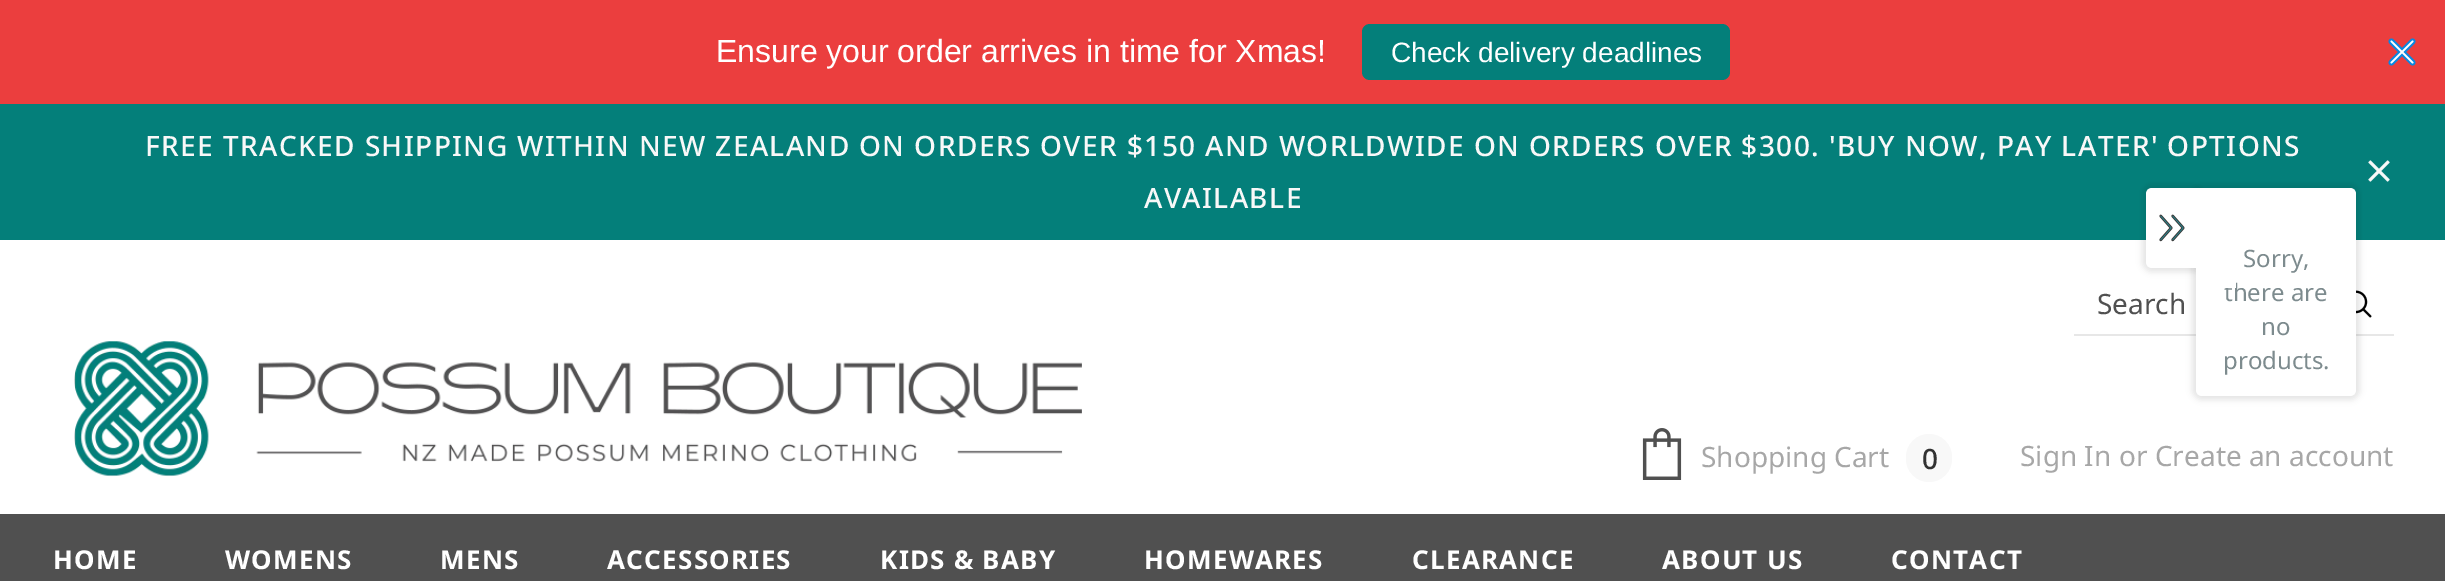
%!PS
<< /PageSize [2445 581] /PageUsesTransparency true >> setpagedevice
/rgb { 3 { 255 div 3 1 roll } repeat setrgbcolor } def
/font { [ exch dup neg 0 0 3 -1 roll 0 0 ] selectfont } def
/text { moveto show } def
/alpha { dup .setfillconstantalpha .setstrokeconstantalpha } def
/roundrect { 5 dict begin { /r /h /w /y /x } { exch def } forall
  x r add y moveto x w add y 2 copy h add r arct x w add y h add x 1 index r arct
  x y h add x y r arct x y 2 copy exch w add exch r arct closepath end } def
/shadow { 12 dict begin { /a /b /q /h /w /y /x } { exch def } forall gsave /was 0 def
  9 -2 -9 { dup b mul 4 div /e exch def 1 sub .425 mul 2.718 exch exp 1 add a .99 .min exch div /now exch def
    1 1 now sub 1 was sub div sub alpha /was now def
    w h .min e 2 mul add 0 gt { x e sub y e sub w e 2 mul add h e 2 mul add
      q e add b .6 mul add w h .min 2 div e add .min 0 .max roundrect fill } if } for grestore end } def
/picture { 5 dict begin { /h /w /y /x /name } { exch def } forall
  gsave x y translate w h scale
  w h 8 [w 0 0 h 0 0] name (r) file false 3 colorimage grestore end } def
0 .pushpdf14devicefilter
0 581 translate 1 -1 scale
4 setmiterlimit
255 255 255 rgb
0 0 2445 581 rectfill
235 62 62 rgb
0 0 2445 104 rectfill
4 127 122 rgb
1362 24 368 56 8 roundrect fill
(img_01.rgb) 2388 38 28 28 picture
0 104 2445 136 rectfill
(img_02.rgb) 2368 160 22 22 picture
231 231 231 rgb
2074 334 320 2 rectfill
(img_03.rgb) 2356 290 16 28 picture
(img_04.rgb) 74 341 1008 136 picture
(img_05.rgb) 1642 428 40 52 picture
248 248 248 rgb
1906 434 46 48 23 roundrect fill
80 80 80 rgb
0 514 2445 67 rectfill
0 0 0 rgb
2192 184 168 216 10 3 0.1 shadow
255 255 255 rgb
2196 188 moveto 154 0 rlineto 3.5 0 6 2.5 6 6 rcurveto 0 196 rlineto 0 3.5 -2.5 6 -6 6 rcurveto -148 0 rlineto -3.5 0 -6 -2.5 -6 -6 rcurveto closepath fill
0 0 0 rgb
2142 184 60 88 10 3 0.1 shadow
255 255 255 rgb
2152 188 moveto 46 0 rlineto 0 80 rlineto -46 0 rlineto -3.5 0 -6 -2.5 -6 -6 rcurveto 0 -68 rlineto 0 -3.5 2.5 -6 6 -6 rcurveto closepath fill
(img_06.rgb) 2159 214 26 28 picture
/LiberationSans-Regular 32 font
(Ensure your order arrives in time for Xmas!) 716 62 text
/LiberationSans-Regular 28 font
(Check delivery deadlines) 1391 62 text
/NotoSans-Medium 28 font
248 248 248 rgb
145 156 moveto 1.4 0 (FREE TRACKED SHIPPING WITHIN NEW ZEALAND ON ORDERS OVER $150 AND WORLDWIDE ON ORDERS OVER $300. 'BUY NOW, PAY LATER' OPTIONS) ashow
1144 208 moveto 1.4 0 (AVAILABLE) ashow
/NotoSans-Regular 28 font
80 80 80 rgb
(Search) 2097 314 text
167 167 167 rgb
(Shopping Cart) 1701 467 text
/NotoSans-Medium 28 font
50 50 50 rgb
(0) 1922 469 text
/NotoSans-Regular 28 font
167 167 167 rgb
(Sign In) 2020 466 text
(or Create an account) 2119 466 text
/NotoSans-Bold 26 font
255 255 255 rgb
53 569 moveto 1.25 0 (HOME) ashow
225 569 moveto 1.25 0 (WOMENS) ashow
440 569 moveto 1.25 0 (MENS) ashow
607 569 moveto 1.25 0 (ACCESSORIES) ashow
880 569 moveto 1.25 0 (KIDS & BABY) ashow
1144 569 moveto 1.25 0 (HOMEWARES) ashow
1412 569 moveto 1.25 0 (CLEARANCE) ashow
1662 569 moveto 1.25 0 (ABOUT US) ashow
1891 569 moveto 1.25 0 (CONTACT) ashow
/NotoSans-Regular 24 font
125 139 142 rgb
(Sorry,) 2243 267 text
(there are) 2224 301 text
255 255 255 rgb
2196 188 40 100 rectfill
125 139 142 rgb
(no) 2261 335 text
(products.) 2223 369 text
.poppdf14devicefilter showpage
